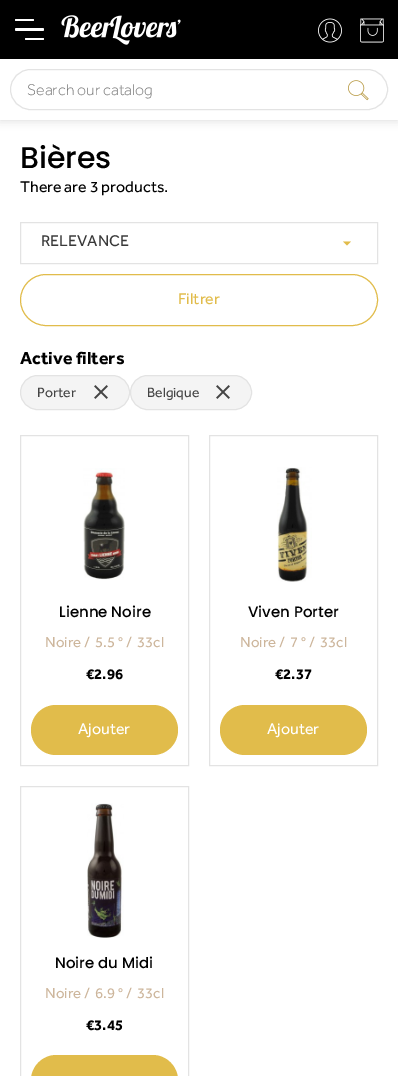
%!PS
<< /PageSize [398 1076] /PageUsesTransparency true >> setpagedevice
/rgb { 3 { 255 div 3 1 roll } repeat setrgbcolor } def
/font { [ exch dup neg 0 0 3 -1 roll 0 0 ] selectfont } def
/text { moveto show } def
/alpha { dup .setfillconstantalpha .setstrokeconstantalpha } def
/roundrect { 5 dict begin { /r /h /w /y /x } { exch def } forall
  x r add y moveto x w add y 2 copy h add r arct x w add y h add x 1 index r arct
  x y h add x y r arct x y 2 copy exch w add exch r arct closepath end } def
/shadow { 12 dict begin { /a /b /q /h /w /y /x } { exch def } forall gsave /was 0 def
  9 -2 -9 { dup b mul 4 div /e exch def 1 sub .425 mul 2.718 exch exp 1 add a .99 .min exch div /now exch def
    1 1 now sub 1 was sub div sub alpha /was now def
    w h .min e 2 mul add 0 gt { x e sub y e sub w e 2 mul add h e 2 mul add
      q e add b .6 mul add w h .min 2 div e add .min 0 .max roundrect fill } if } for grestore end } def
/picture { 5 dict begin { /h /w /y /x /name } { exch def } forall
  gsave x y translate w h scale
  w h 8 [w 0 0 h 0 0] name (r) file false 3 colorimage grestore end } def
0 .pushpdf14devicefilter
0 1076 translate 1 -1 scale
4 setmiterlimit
255 255 255 rgb
0 0 398 1076 rectfill
0 0 0 rgb
0 0 398 59 rectfill
255 255 255 rgb
15 28 29 3 1.5 roundrect fill
15 19 19 2 1 roundrect fill
25 38 19 2 1 roundrect fill
(img_01.rgb) 61 15 120 30 picture
(img_02.rgb) 318 18 24 25 picture
(img_03.rgb) 360 18 24 25 picture
gsave
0 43 moveto 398 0 rlineto 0 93 rlineto -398 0 rlineto closepath 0 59 moveto 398 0 rlineto 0 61 rlineto -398 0 rlineto closepath eoclip newpath
0 0 0 rgb
0 59 398 61 0 5 0.15 shadow
grestore
227 227 227 rgb
10.5 69.5 377 40 20 roundrect stroke
(img_04.rgb) 348 80 21 21 picture
20.5 222.5 357 41 rectstroke
225 188 75 rgb
343 241.5 moveto 8 0 rlineto -4 4 rlineto closepath fill
20.5 274.5 357 51 25.5 roundrect stroke
244 244 244 rgb
20.5 375.5 109 34 17 roundrect gsave fill grestore
227 227 227 rgb
stroke
(img_05.rgb) 94 385 14 14 picture
244 244 244 rgb
130.5 375.5 121 34 17 roundrect gsave fill grestore
227 227 227 rgb
stroke
(img_05.rgb) 216 385 14 14 picture
20.5 435.5 168 330 rectstroke
(img_06.rgb) 83 468 42 112 picture
225 188 75 rgb
31 705 147 50 25 roundrect fill
227 227 227 rgb
209.5 435.5 168 330 rectstroke
(img_07.rgb) 277 467 35 115 picture
225 188 75 rgb
220 705 147 50 25 roundrect fill
227 227 227 rgb
20.5 786.5 168 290 rectstroke
(img_08.rgb) 87 803 37 135 picture
225 188 75 rgb
31 1055 147 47 25.5 roundrect fill
/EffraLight-Light 16 font
117 117 117 rgb
(Search our catalog) 27 95 text
/Poppins-Medium 30 font
0 0 0 rgb
(Bières) 20 168 text
/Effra-Regular 16 font
(There are 3 products.) 20 192 text
57 57 57 rgb
(RELEVANCE) 41 246 text
225 188 75 rgb
(Filtrer) 178 304 text
/Effra-Bold 18 font
0 0 0 rgb
(Active filters) 20 364 text
/Effra-Regular 14 font
68 68 68 rgb
(Porter) 37 397 text
(Belgique) 147 397 text
/Poppins-Medium 15 font
0 0 0 rgb
(Lienne Noire) 59 617 text
/Effra-Regular 15 font
205 182 156 rgb
(Noire /) 45 647 text
(5.5 ° /) 95 647 text
(33cl) 137 647 text
/Effra-Bold 15 font
0 0 0 rgb
(€2.96) 86 679 text
/Effra-Regular 16 font
255 255 255 rgb
(Ajouter) 78 734 text
/Poppins-Medium 15 font
0 0 0 rgb
(Viven Porter) 248 617 text
/Effra-Regular 15 font
205 182 156 rgb
(Noire /) 240 647 text
(7 ° /) 290 647 text
(33cl) 320 647 text
/Effra-Bold 15 font
0 0 0 rgb
(€2.37) 275 679 text
/Effra-Regular 16 font
255 255 255 rgb
(Ajouter) 267 734 text
/Poppins-Medium 15 font
0 0 0 rgb
(Noire du Midi) 55 968 text
/Effra-Regular 15 font
205 182 156 rgb
(Noire /) 45 998 text
(6.9 ° /) 95 998 text
(33cl) 137 998 text
/Effra-Bold 15 font
0 0 0 rgb
(€3.45) 86 1030 text
.poppdf14devicefilter showpage
